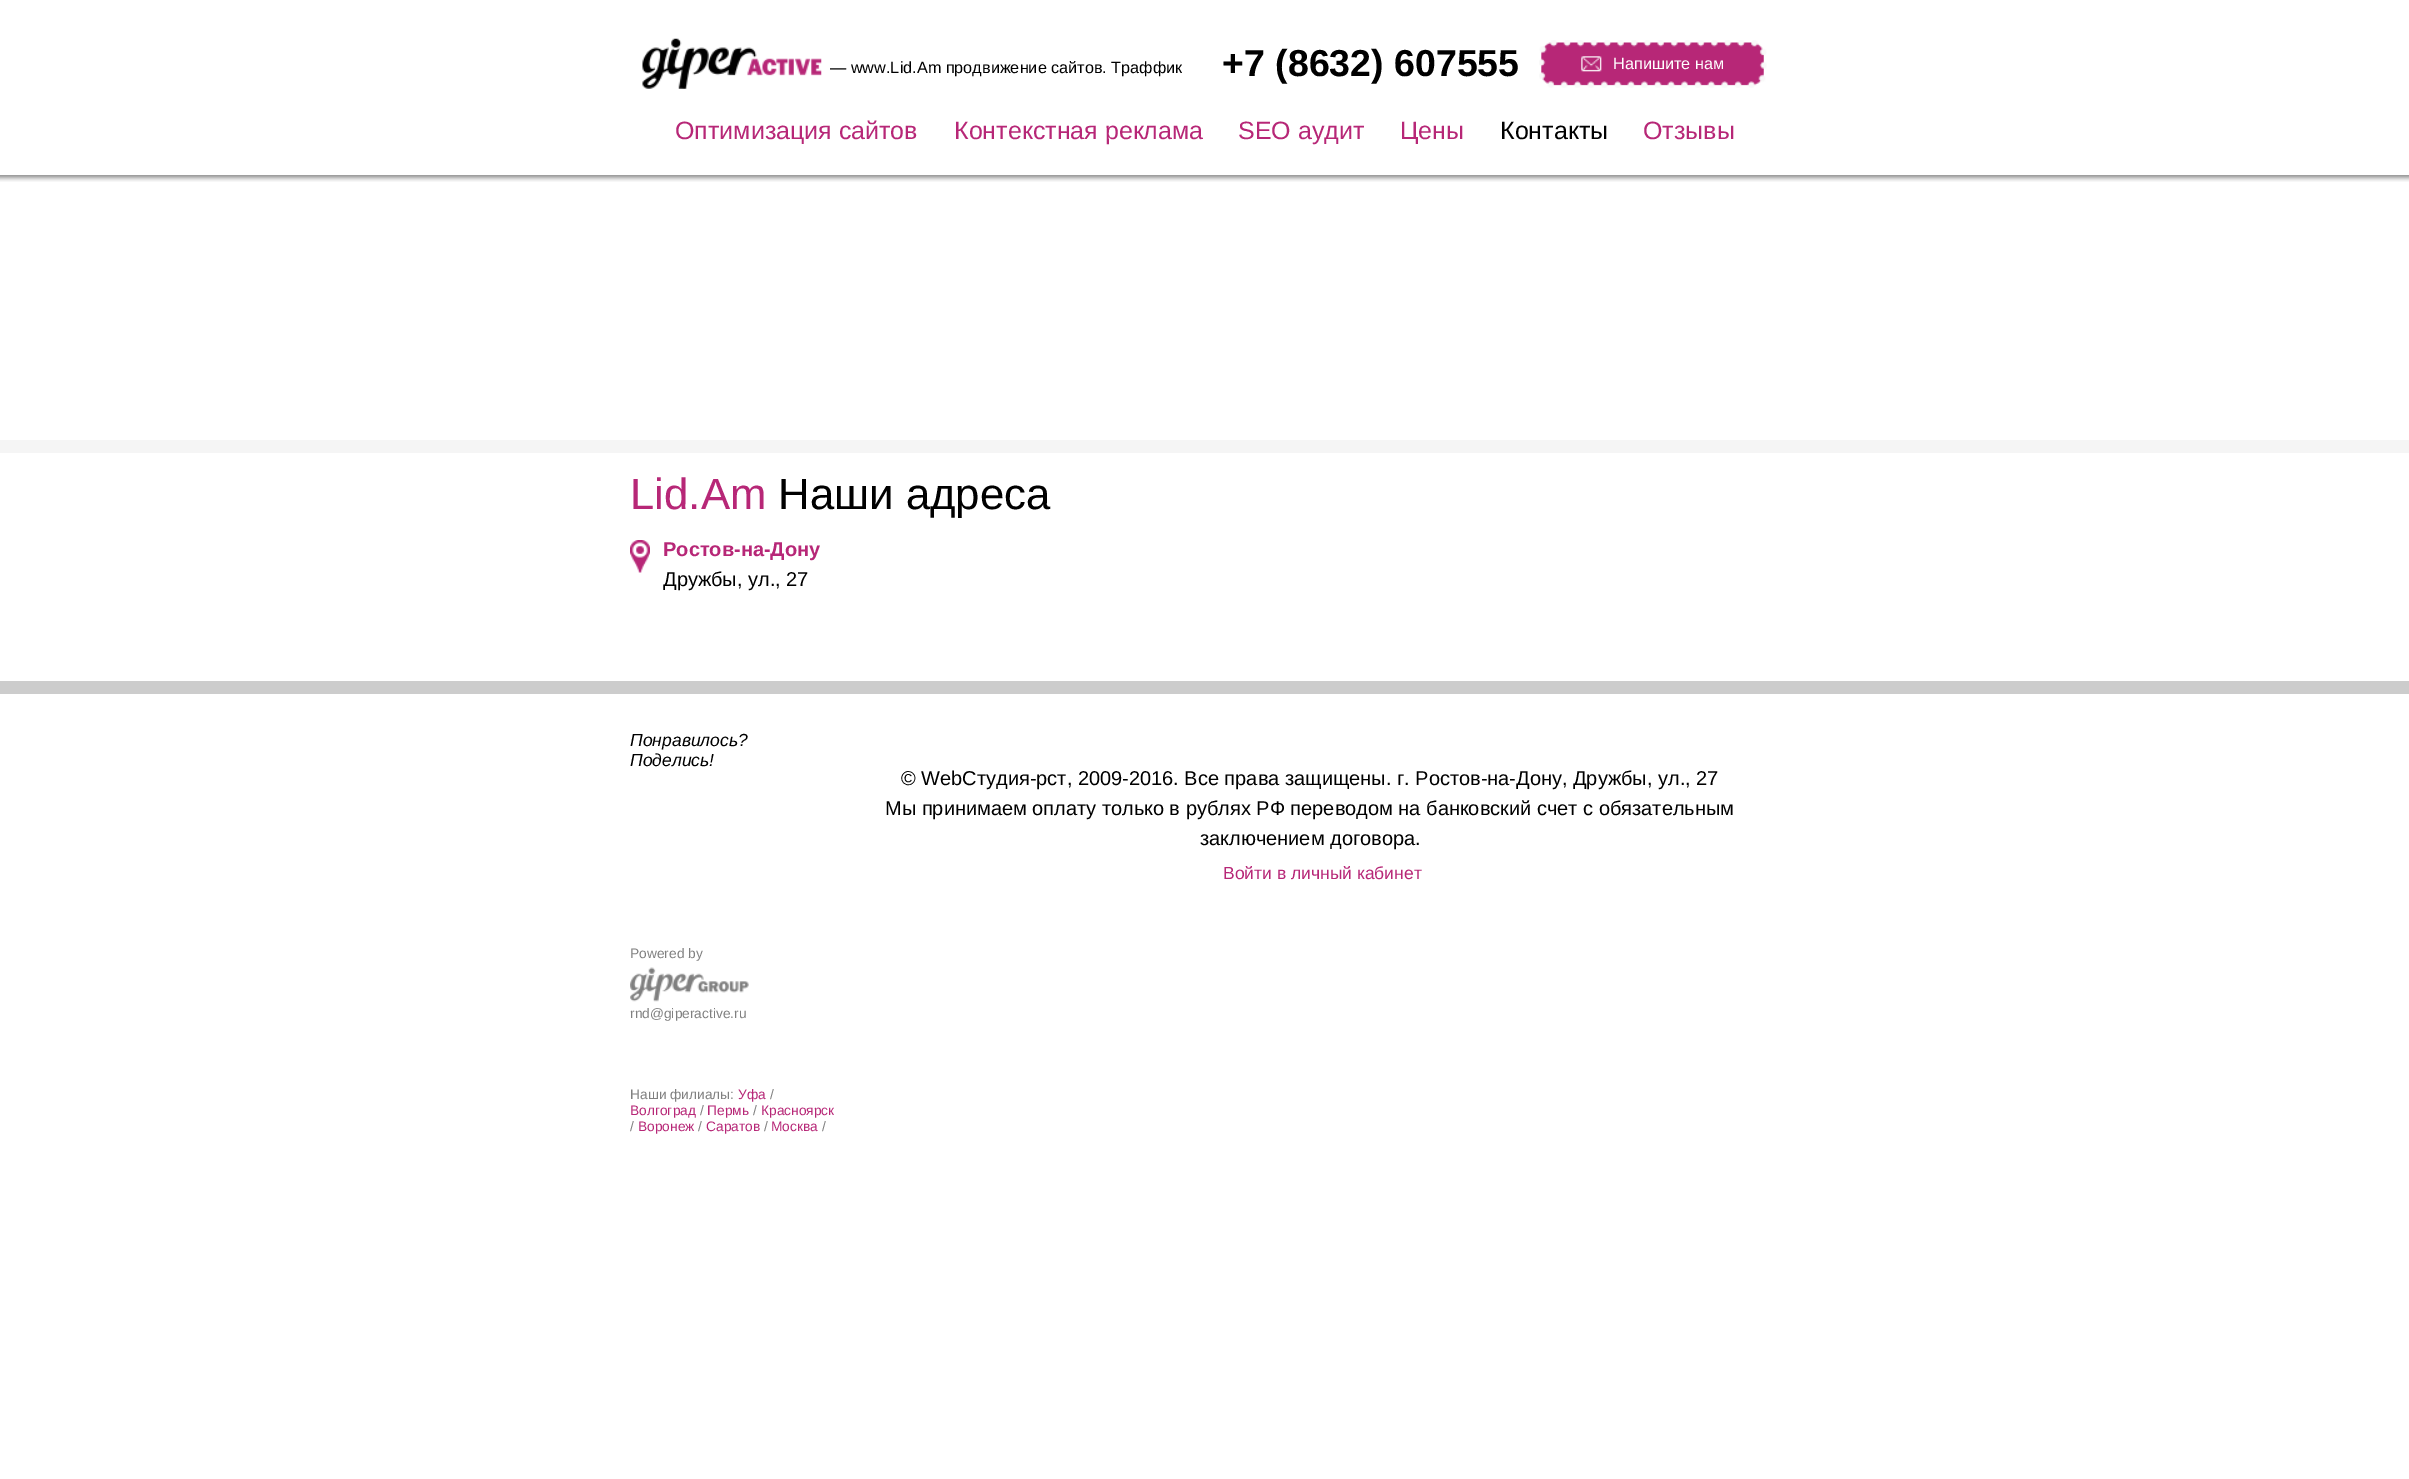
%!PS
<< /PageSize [2409 1479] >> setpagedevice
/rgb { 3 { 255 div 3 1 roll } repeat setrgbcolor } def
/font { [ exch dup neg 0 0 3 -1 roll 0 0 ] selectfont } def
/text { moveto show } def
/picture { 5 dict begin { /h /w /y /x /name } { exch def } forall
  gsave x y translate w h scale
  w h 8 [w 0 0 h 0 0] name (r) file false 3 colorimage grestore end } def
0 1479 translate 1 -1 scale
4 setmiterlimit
255 255 255 rgb
0 0 2409 1479 rectfill
(img_01.rgb) 642 38 180 51 picture
(img_02.rgb) 1539 40 228 48 picture
245 245 245 rgb
0 440 2409 13 rectfill
(img_03.rgb) 0 175 2409 7 picture
(img_04.rgb) 630 540 20 33 picture
204 204 204 rgb
0 681 2409 13 rectfill
(img_05.rgb) 630 967 119 35 picture
/LiberationSans-Regular 16.25 font
0 0 0 rgb
(— www.Lid.Am продвижение сайтов. Траффик) 830 73 text
/LiberationSans-Bold 37.5 font
(+7 \(8632\) 607555) 1222 76 text
/LiberationSans-Regular 16.25 font
255 255 255 rgb
(Напишите нам) 1613 69 text
/LiberationSans-Regular 25 font
183 39 119 rgb
(Оптимизация сайтов) 675 139 text
(Контекстная реклама) 954 139 text
(SEO аудит) 1238 139 text
(Цены) 1400 139 text
0 0 0 rgb
(Контакты) 1500 139 text
183 39 119 rgb
(Отзывы) 1643 139 text
/LiberationSans-Regular 43.75 font
(Lid.Am) 630 509 text
0 0 0 rgb
(Наши адреса) 778 509 text
/LiberationSans-Bold 20 font
183 39 119 rgb
(Ростов-на-Дону) 663 556 text
/LiberationSans-Regular 20 font
0 0 0 rgb
(Дружбы, ул., 27) 663 586 text
/LiberationSans-Italic 17.5 font
(Понравилось?) 630 746 text
(Поделись!) 630 766 text
/LiberationSans-Regular 13.75 font
128 128 128 rgb
(Powered by) 630 958 text
(rnd@giperactive.ru) 630 1018 text
(Наши филиалы:) 630 1099 text
183 39 119 rgb
(Уфа) 738 1099 text
128 128 128 rgb
(/) 770 1099 text
183 39 119 rgb
(Волгоград) 630 1115 text
128 128 128 rgb
(/) 700 1115 text
183 39 119 rgb
(Пермь) 707 1115 text
128 128 128 rgb
(/) 753 1115 text
183 39 119 rgb
(Красноярск) 761 1115 text
128 128 128 rgb
(/) 630 1131 text
183 39 119 rgb
(Воронеж) 638 1131 text
128 128 128 rgb
(/) 698 1131 text
183 39 119 rgb
(Саратов) 706 1131 text
128 128 128 rgb
(/) 764 1131 text
183 39 119 rgb
(Москва) 771 1131 text
128 128 128 rgb
(/) 822 1131 text
/LiberationSans-Regular 20 font
0 0 0 rgb
(© WebСтудия-рст, 2009-2016. Все права защищены. г. Ростов-на-Дону, Дружбы, ул., 27) 901 785 text
(Мы принимаем оплату только в рублях РФ переводом на банковский счет с обязательным) 885 815 text
(заключением договора.) 1200 845 text
/LiberationSans-Regular 17.5 font
183 39 119 rgb
(Войти в личный кабинет) 1223 879 text
showpage
